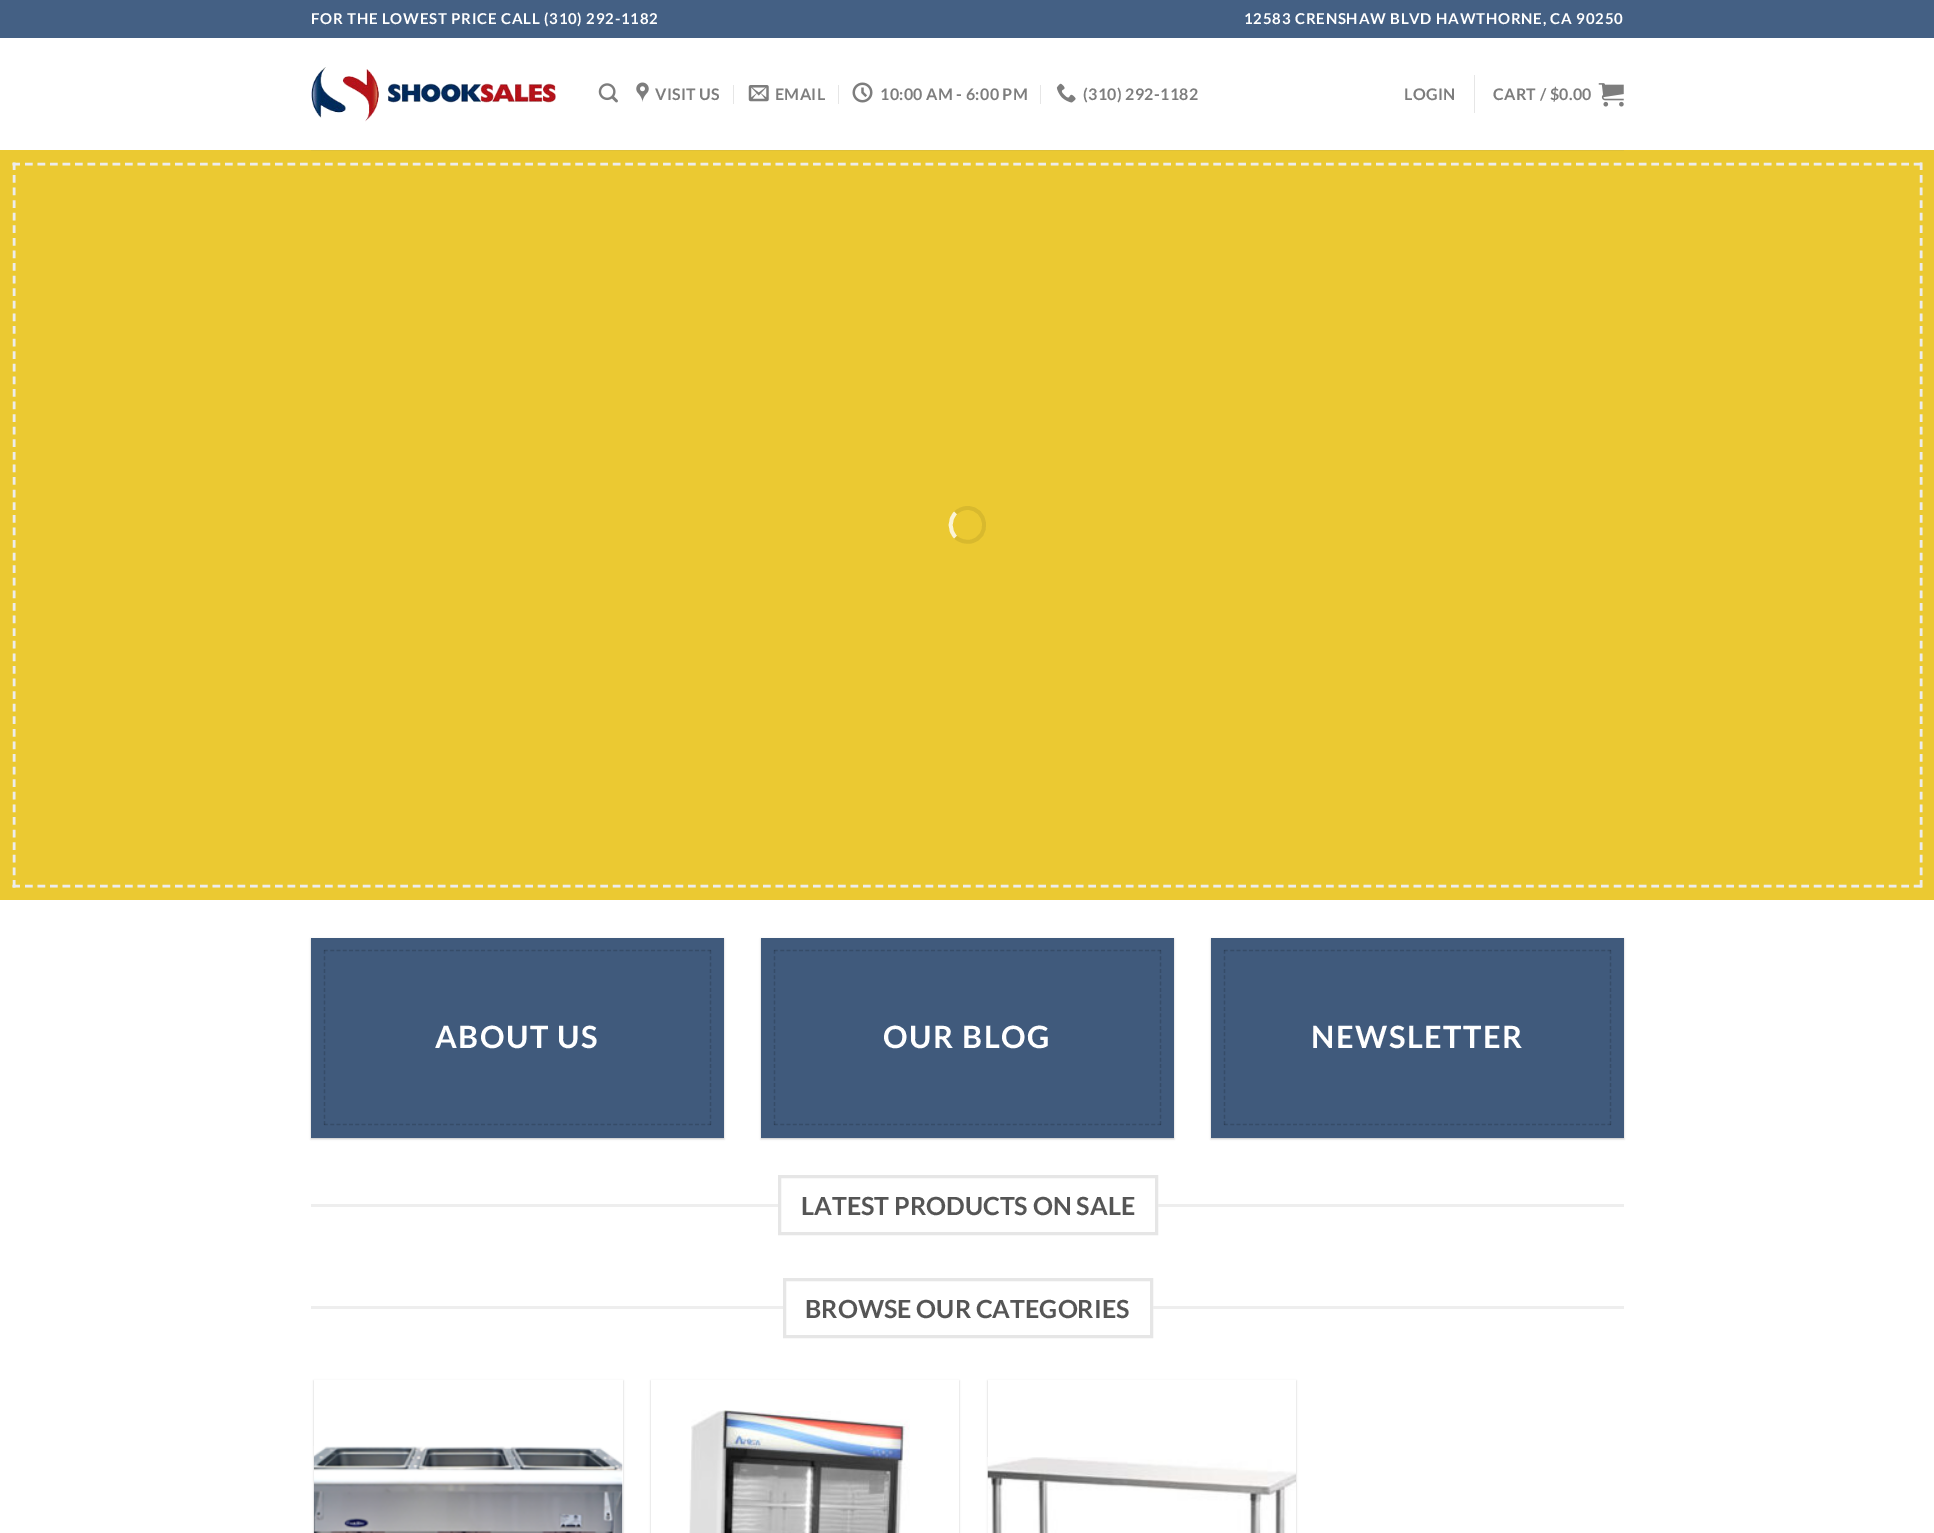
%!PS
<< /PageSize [1934 1533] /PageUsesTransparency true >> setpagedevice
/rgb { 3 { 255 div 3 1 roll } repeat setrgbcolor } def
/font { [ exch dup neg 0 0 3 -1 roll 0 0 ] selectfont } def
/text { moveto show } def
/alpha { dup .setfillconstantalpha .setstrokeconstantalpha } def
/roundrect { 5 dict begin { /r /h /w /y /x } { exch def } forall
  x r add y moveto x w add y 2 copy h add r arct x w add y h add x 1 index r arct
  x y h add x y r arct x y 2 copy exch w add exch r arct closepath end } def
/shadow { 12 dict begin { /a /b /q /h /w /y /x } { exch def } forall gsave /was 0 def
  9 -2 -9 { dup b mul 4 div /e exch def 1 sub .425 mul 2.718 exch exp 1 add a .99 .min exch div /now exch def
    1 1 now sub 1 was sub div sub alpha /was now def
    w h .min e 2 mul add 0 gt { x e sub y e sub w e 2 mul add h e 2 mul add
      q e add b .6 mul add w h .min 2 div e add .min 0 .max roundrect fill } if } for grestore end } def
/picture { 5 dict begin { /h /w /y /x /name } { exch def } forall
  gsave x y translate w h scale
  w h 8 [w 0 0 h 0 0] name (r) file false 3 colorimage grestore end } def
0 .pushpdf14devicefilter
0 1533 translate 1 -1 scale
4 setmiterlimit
255 255 255 rgb
0 0 1934 1533 rectfill
68 96 132 rgb
0 0 1934 38 rectfill
(img_01.rgb) 311 67 245 55 picture
(img_02.rgb) 598 83 20 20 picture
(img_03.rgb) 636 82 13 20 picture
230 230 230 rgb
733 85 1 19 rectfill
(img_04.rgb) 748 85 21 17 picture
838 85 1 19 rectfill
(img_05.rgb) 852 82 21 21 picture
1040 85 1 19 rectfill
(img_06.rgb) 1056 83 20 20 picture
1474 75 1 38 rectfill
(img_07.rgb) 1598 83 26 24 picture
235 201 50 rgb
0 150 1934 750 rectfill
223 193 57 rgb
311 150 1313 1 rectfill
236 236 236 rgb
2.5 setlinewidth
[7.5 5.01] 0 setdash
12.5 164 moveto 1910 0 rlineto stroke
[7.5 5.09] 0 setdash
1921 162.5 moveto 0 725 rlineto stroke
[7.5 5.01] 0 setdash
12.5 886 moveto 1910 0 rlineto stroke
[7.5 5.09] 0 setdash
14 162.5 moveto 0 725 rlineto stroke
216 185 46 rgb
3.8 setlinewidth
[] 0 setdash
955.5 513 moveto 3 -3 7.5 -5 12 -5 rcurveto 20 0 23 29.5 3.5 33.5 rcurveto -5.5 1 -11.5 -0.5 -15.5 -4.5 rcurveto stroke
251 244 214 rgb
955.5 537 moveto -6.5 -6.5 -6.5 -17.5 0 -24 rcurveto stroke
0 0 0 rgb
311 939 413 200 0 1 0.24 shadow
64 90 124 rgb
311 938 413 200 rectfill
54 76 104 rgb
1.2 setlinewidth
[3.75 2.54] 0 setdash
324 950.5 moveto 387 0 rlineto stroke
0.16 alpha
0 0 0 rgb
[3.75 2.59] 0 setdash
710.5 950 moveto 0 175 rlineto stroke
[3.75 2.54] 0 setdash
324 1124.5 moveto 387 0 rlineto stroke
[3.75 2.59] 0 setdash
324.5 950 moveto 0 175 rlineto stroke
1 alpha
761 939 413 200 0 1 0.24 shadow
64 90 124 rgb
761 938 413 200 rectfill
54 76 104 rgb
[3.75 2.54] 0 setdash
774 950.5 moveto 387 0 rlineto stroke
0.16 alpha
0 0 0 rgb
[3.75 2.59] 0 setdash
1160.5 950 moveto 0 175 rlineto stroke
[3.75 2.54] 0 setdash
774 1124.5 moveto 387 0 rlineto stroke
[3.75 2.59] 0 setdash
774.5 950 moveto 0 175 rlineto stroke
1 alpha
1211 939 413 200 0 1 0.24 shadow
64 90 124 rgb
1211 938 413 200 rectfill
54 76 104 rgb
[3.75 2.54] 0 setdash
1224 950.5 moveto 387 0 rlineto stroke
0.16 alpha
0 0 0 rgb
[3.75 2.59] 0 setdash
1610.5 950 moveto 0 175 rlineto stroke
[3.75 2.54] 0 setdash
1224 1124.5 moveto 387 0 rlineto stroke
[3.75 2.59] 0 setdash
1224.5 950 moveto 0 175 rlineto stroke
1 alpha
238 238 238 rgb
311 1204 467 3 rectfill
230 230 230 rgb
3 setlinewidth
[] 0 setdash
779.5 1176.5 377 57 rectstroke
238 238 238 rgb
1158 1204 466 3 rectfill
311 1306 472 3 rectfill
230 230 230 rgb
784.5 1279.5 367 57 rectstroke
238 238 238 rgb
1153 1306 471 3 rectfill
0 0 0 rgb
314 1381 309 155 0 1 0.24 shadow
255 255 255 rgb
314 1380 309 153 rectfill
(img_08.rgb) 313 1446 310 87 picture
0 0 0 rgb
651 1381 308 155 0 1 0.24 shadow
255 255 255 rgb
651 1380 308 153 rectfill
(img_09.rgb) 689 1410 221 123 picture
gsave
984 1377 moveto 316 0 rlineto 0 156 rlineto -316 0 rlineto closepath 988 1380 moveto 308 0 rlineto 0 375 rlineto -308 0 rlineto closepath eoclip newpath
0 0 0 rgb
988 1381 308 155 0 1 0.24 shadow
grestore
(img_10.rgb) 987 1457 309 76 picture
/Lato-Bold 15 font
311 24 moveto 0.75 0 (FOR THE LOWEST PRICE CALL \(310\) 292-1182) ashow
1244 24 moveto 0.75 0 (12583 CRENSHAW BLVD HAWTHORNE, CA 90250) ashow
/Lato-Bold 16 font
125 125 125 rgb
655 100 moveto 0.3 0 (VISIT US) ashow
775 100 moveto 0.3 0 (EMAIL) ashow
880 100 moveto 0.3 0 (10:00 AM - 6:00 PM) ashow
1083 100 moveto 0.3 0 (\(310\) 292-1182) ashow
1404 100 moveto 0.3 0 (LOGIN) ashow
1493 100 moveto 0.3 0 (CART / $0.00) ashow
/Lato-Bold 30.75 font
255 255 255 rgb
435 1048 moveto 1.5 0 (ABOUT US) ashow
883 1048 moveto 1.5 0 (OUR BLOG) ashow
1311 1048 moveto 1.5 0 (NEWSLETTER) ashow
/Lato-Bold 25 font
85 85 85 rgb
(LATEST PRODUCTS ON SALE) 801 1215 text
(BROWSE OUR CATEGORIES) 805 1318 text
.poppdf14devicefilter showpage
